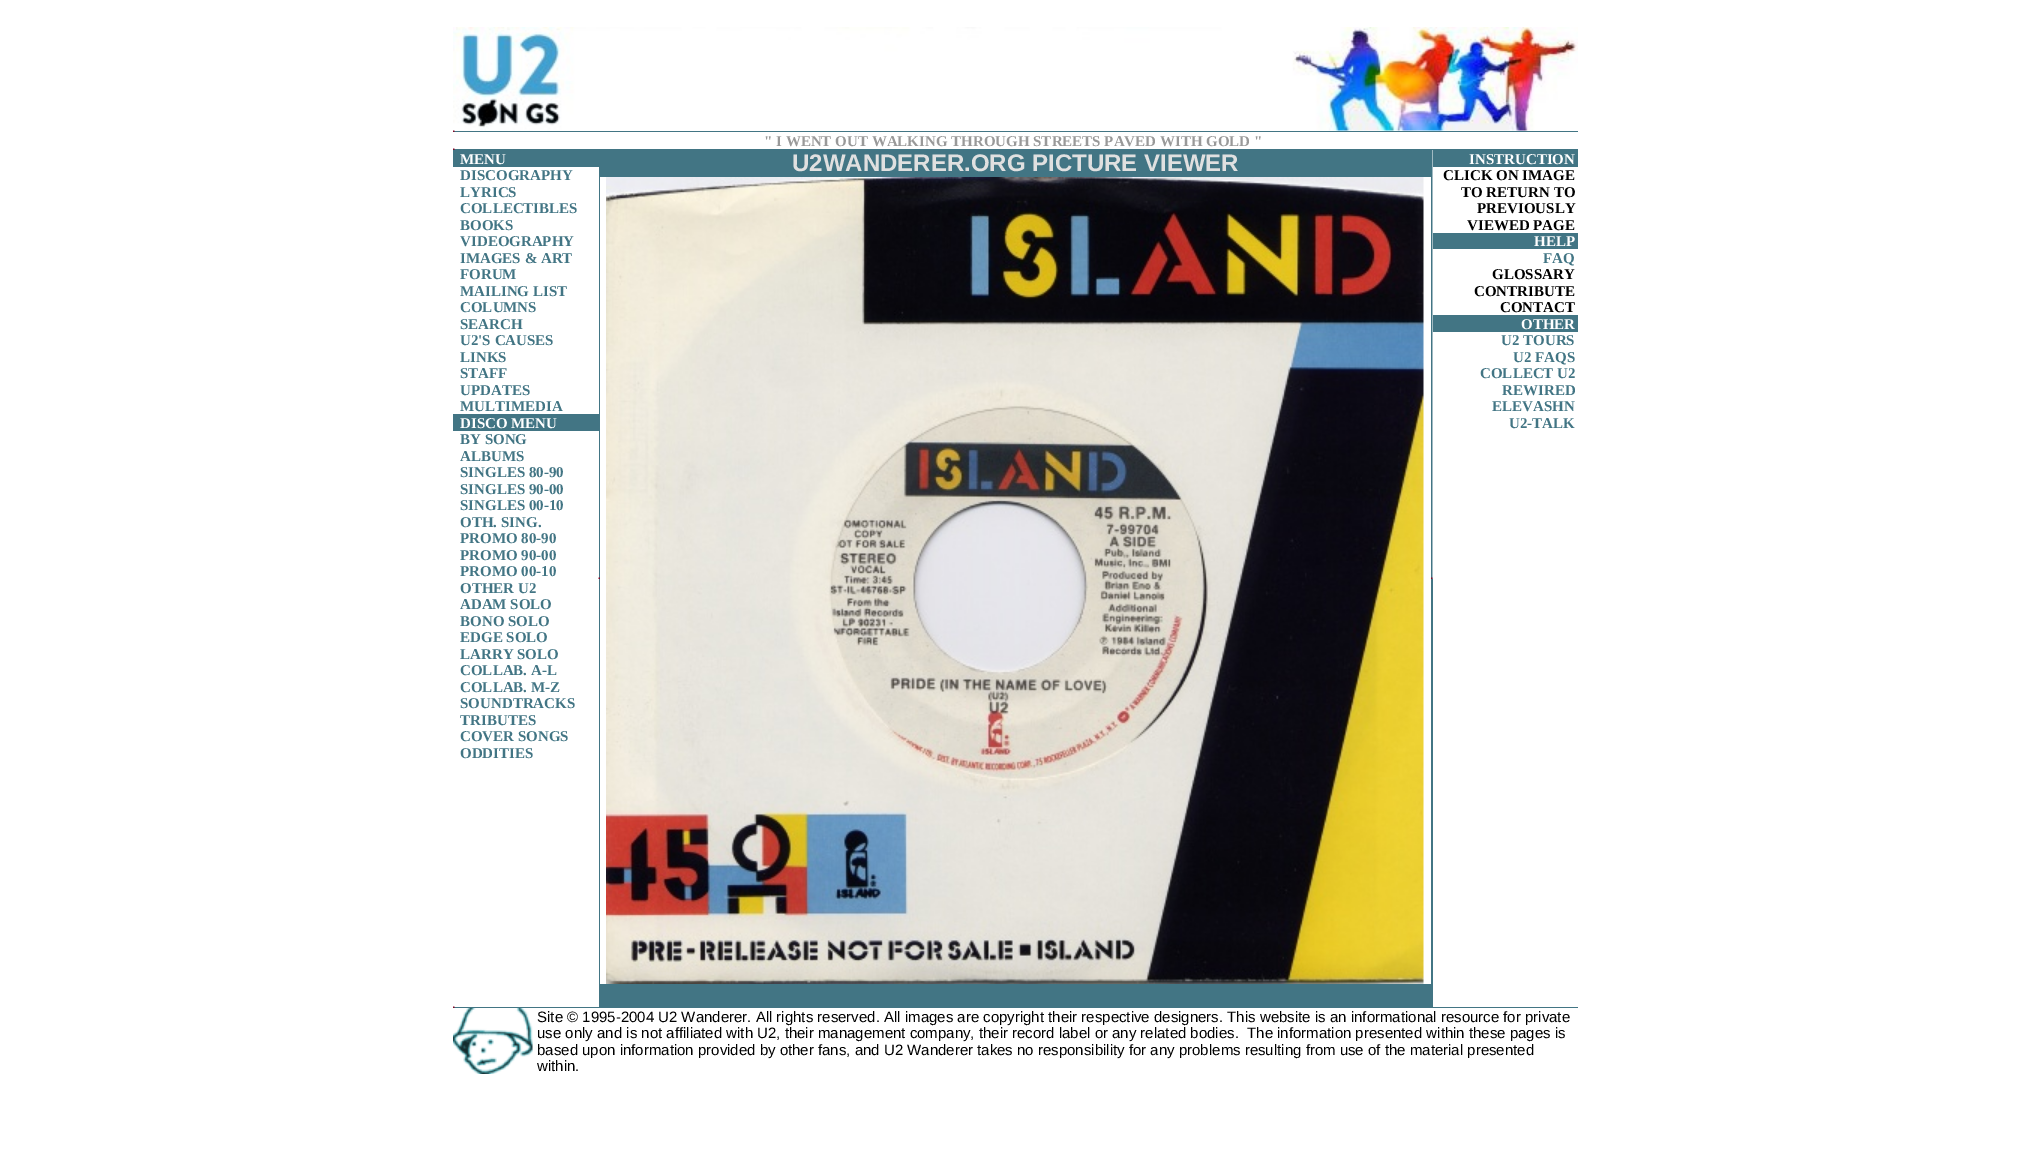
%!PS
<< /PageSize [2030 1151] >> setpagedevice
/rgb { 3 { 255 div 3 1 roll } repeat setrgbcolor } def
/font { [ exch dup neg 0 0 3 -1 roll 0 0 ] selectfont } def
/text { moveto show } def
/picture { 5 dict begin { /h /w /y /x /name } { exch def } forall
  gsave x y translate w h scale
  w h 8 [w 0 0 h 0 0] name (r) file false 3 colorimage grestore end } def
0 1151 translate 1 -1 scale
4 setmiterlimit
255 255 255 rgb
0 0 2030 1151 rectfill
(img_01.rgb) 453 27 1125 104 picture
66 117 132 rgb
453 131 1125 1 rectfill
(img_02.rgb) 453 130 2 2 picture
453 149 1125 1 rectfill
(img_02.rgb) 453 148 2 2 picture
453 150 146 17 rectfill
453 414 146 17 rectfill
599 150 1 857 rectfill
(img_03.rgb) 598 577 2 2 picture
600 150 831 27 rectfill
(img_04.rgb) 606 177 818 807 picture
600 984 831 23 rectfill
1431 150 2 857 rectfill
161 186 194 rgb
1432 150 1 429 rectfill
(img_05.rgb) 1431 577 2 2 picture
66 117 132 rgb
1433 150 145 17 rectfill
1433 233 145 16 rectfill
1433 315 145 17 rectfill
453 1007 1125 1 rectfill
(img_02.rgb) 453 1006 2 2 picture
(img_06.rgb) 453 1008 80 66 picture
/LiberationSerif-Bold 15 font
153 153 153 rgb
(" I WENT OUT WALKING THROUGH STREETS PAVED WITH GOLD ") 764 146 text
255 255 255 rgb
(MENU) 460 164 text
66 117 132 rgb
(DISCOGRAPHY) 460 180 text
(LYRICS) 460 197 text
(COLLECTIBLES) 460 213 text
(BOOKS) 460 230 text
(VIDEOGRAPHY) 460 246 text
(IMAGES & ART) 460 263 text
(FORUM) 460 279 text
(MAILING LIST) 460 296 text
(COLUMNS) 460 312 text
(SEARCH) 460 329 text
(U2'S CAUSES) 460 345 text
(LINKS) 460 362 text
(STAFF) 460 378 text
(UPDATES) 460 395 text
(MULTIMEDIA) 460 411 text
255 255 255 rgb
(DISCO MENU) 460 428 text
66 117 132 rgb
(BY SONG) 460 444 text
(ALBUMS) 460 461 text
(SINGLES 80-90) 460 477 text
(SINGLES 90-00) 460 494 text
(SINGLES 00-10) 460 510 text
(OTH. SING.) 460 527 text
(PROMO 80-90) 460 543 text
(PROMO 90-00) 460 560 text
(PROMO 00-10) 460 576 text
(OTHER U2) 460 593 text
(ADAM SOLO) 460 609 text
(BONO SOLO) 460 626 text
(EDGE SOLO) 460 642 text
(LARRY SOLO) 460 659 text
(COLLAB. A-L) 460 675 text
(COLLAB. M-Z) 460 692 text
(SOUNDTRACKS) 460 708 text
(TRIBUTES) 460 725 text
(COVER SONGS) 460 741 text
(ODDITIES) 460 758 text
/LiberationSans-Bold 24 font
224 224 224 rgb
(U2WANDERER.ORG PICTURE VIEWER) 792 171 text
/LiberationSerif-Bold 15 font
255 255 255 rgb
(INSTRUCTION) 1469 164 text
0 0 0 rgb
(CLICK ON IMAGE) 1443 180 text
(TO RETURN TO) 1461 197 text
(PREVIOUSLY) 1477 213 text
(VIEWED PAGE) 1467 230 text
255 255 255 rgb
(HELP) 1534 246 text
66 117 132 rgb
(FAQ) 1543 263 text
0 0 0 rgb
(GLOSSARY) 1492 279 text
(CONTRIBUTE) 1474 296 text
(CONTACT) 1500 312 text
255 255 255 rgb
(OTHER) 1521 329 text
66 117 132 rgb
(U2 TOURS) 1501 345 text
(U2 FAQS) 1513 362 text
(COLLECT U2) 1480 378 text
(REWIRED) 1502 395 text
(ELEVASHN) 1492 411 text
(U2-TALK) 1509 428 text
/LiberationSans-Regular 15 font
0 0 0 rgb
(Site © 1995-2004 U2 Wanderer. All rights reserved. All images are copyright their respective designers. This website is an informational resource for private) 537 1022 text
(use only and is not affiliated with U2, their management company, their record label or any related bodies.  The information presented within these pages is) 537 1038 text
(based upon information provided by other fans, and U2 Wanderer takes no responsibility for any problems resulting from use of the material presented) 537 1055 text
(within.) 537 1071 text
showpage
